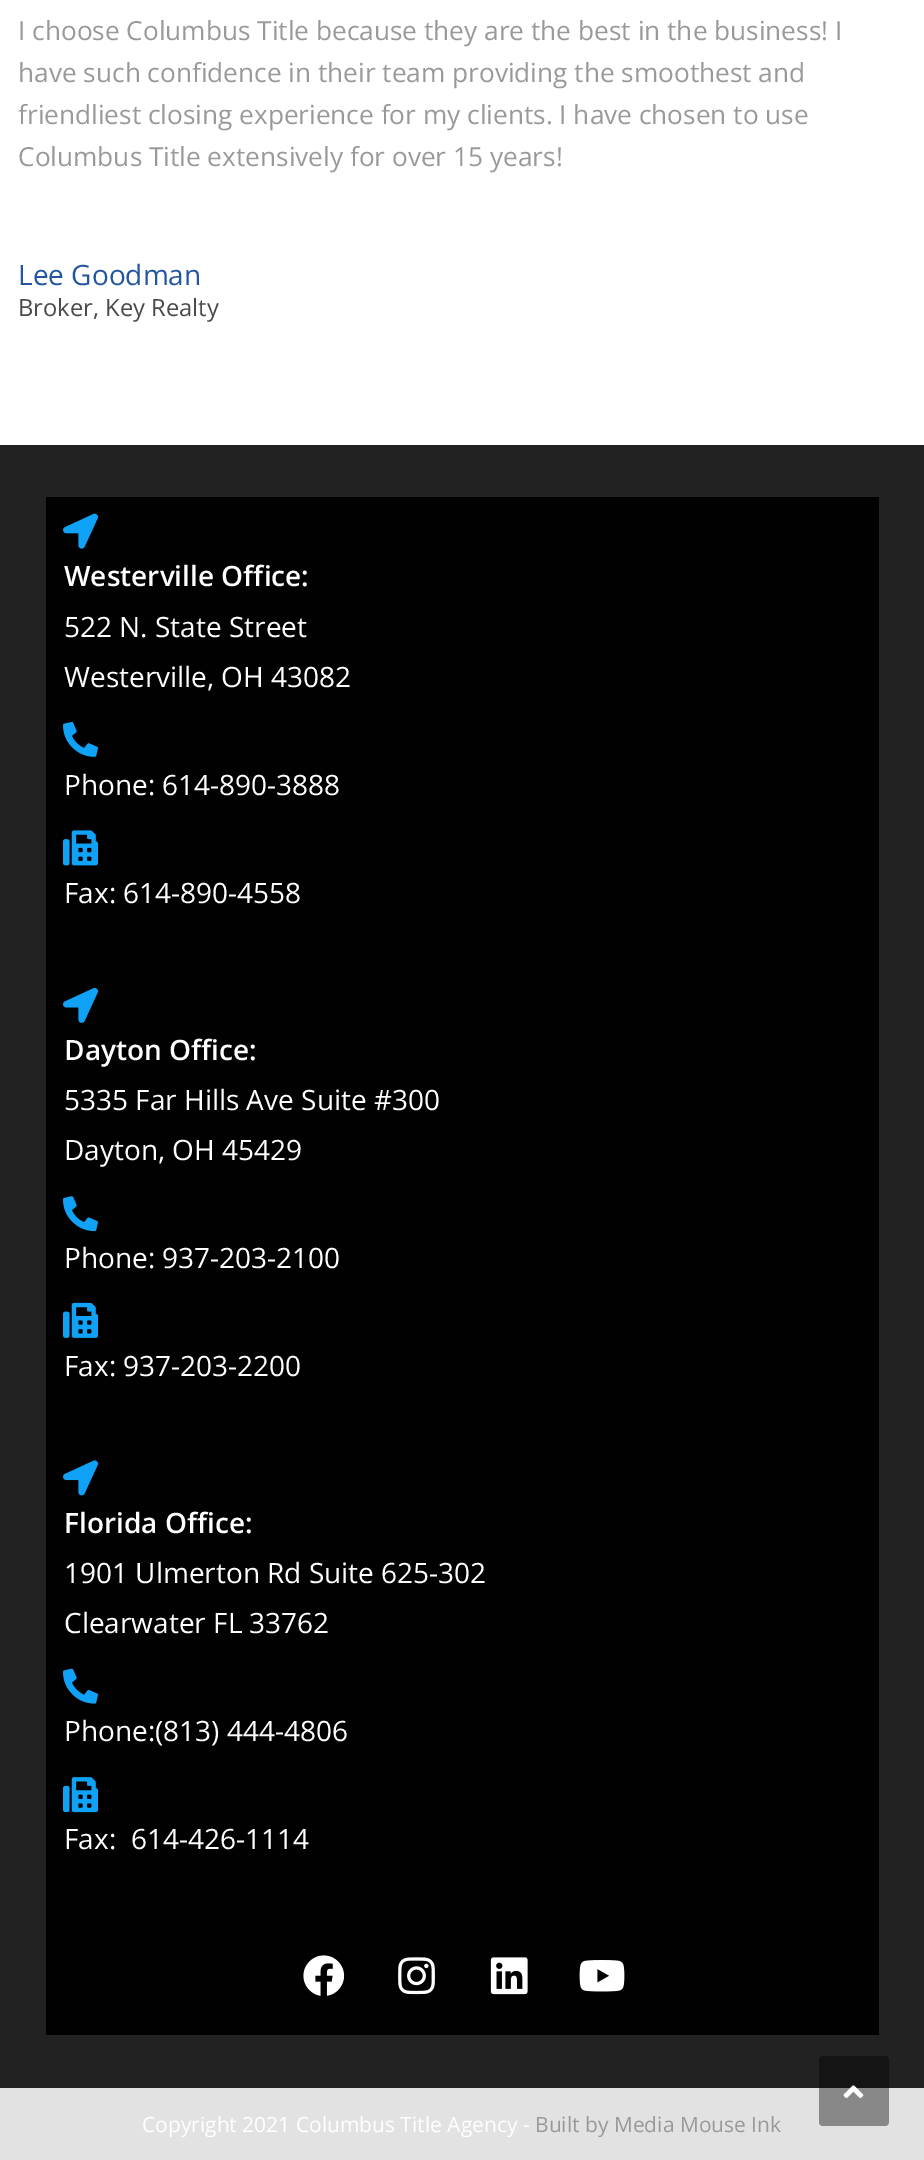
%!PS
<< /PageSize [924 2160] /PageUsesTransparency true >> setpagedevice
/rgb { 3 { 255 div 3 1 roll } repeat setrgbcolor } def
/font { [ exch dup neg 0 0 3 -1 roll 0 0 ] selectfont } def
/text { moveto show } def
/alpha { dup .setfillconstantalpha .setstrokeconstantalpha } def
/roundrect { 5 dict begin { /r /h /w /y /x } { exch def } forall
  x r add y moveto x w add y 2 copy h add r arct x w add y h add x 1 index r arct
  x y h add x y r arct x y 2 copy exch w add exch r arct closepath end } def
/picture { 5 dict begin { /h /w /y /x /name } { exch def } forall
  gsave x y translate w h scale
  w h 8 [w 0 0 h 0 0] name (r) file false 3 colorimage grestore end } def
0 .pushpdf14devicefilter
0 2160 translate 1 -1 scale
4 setmiterlimit
255 255 255 rgb
0 0 924 2160 rectfill
34 34 34 rgb
0 445 924 1643 rectfill
1 1 2 rgb
46 497 833 1538 rectfill
(img_01.rgb) 63 513 35 36 picture
(img_02.rgb) 63 721 35 36 picture
(img_03.rgb) 63 830 35 36 picture
(img_04.rgb) 63 987 36 36 picture
(img_05.rgb) 63 1196 35 36 picture
(img_06.rgb) 63 1302 35 36 picture
(img_07.rgb) 63 1460 36 36 picture
(img_08.rgb) 63 1668 35 36 picture
(img_09.rgb) 63 1777 35 36 picture
(img_10.rgb) 303 1955 42 41 picture
(img_11.rgb) 398 1957 37 38 picture
(img_12.rgb) 490 1957 38 38 picture
(img_13.rgb) 579 1960 46 32 picture
226 226 226 rgb
0 2088 924 72 rectfill
0.4 alpha
0 0 0 rgb
819 2056 70 70 4 roundrect fill
1 alpha
(img_14.rgb) 843 2085 21 13 picture
/OpenSans-Regular 26.25 font
153 153 153 rgb
(I choose Columbus Title because they are the best in the business! I) 18 40 text
(have such confidence in their team providing the smoothest and) 18 82 text
(friendliest closing experience for my clients. I have chosen to use) 18 124 text
(Columbus Title extensively for over 15 years!) 18 166 text
/OpenSans-Regular 28 font
36 85 159 rgb
(Lee Goodman) 18 285 text
/OpenSans-Regular 23.75 font
74 74 74 rgb
(Broker, Key Realty) 18 316 text
/OpenSans-SemiBold 28 font
255 255 255 rgb
(Westerville Office:) 64 586 text
/OpenSans-Regular 28 font
(522 N. State Street) 64 637 text
(Westerville, OH 43082) 64 687 text
(Phone: 614-890-3888) 64 795 text
(Fax: 614-890-4558) 64 903 text
/OpenSans-SemiBold 28 font
(Dayton Office:) 64 1060 text
/OpenSans-Regular 28 font
(5335 Far Hills Ave Suite #300) 64 1110 text
(Dayton, OH 45429) 64 1160 text
(Phone: 937-203-2100) 64 1268 text
(Fax: 937-203-2200) 64 1376 text
/OpenSans-SemiBold 28 font
(Florida Office:) 64 1533 text
/OpenSans-Regular 28 font
(1901 Ulmerton Rd Suite 625-302) 64 1583 text
(Clearwater FL 33762) 64 1633 text
(Phone:\(813\) 444-4806) 64 1741 text
(Fax:  614-426-1114) 64 1849 text
/OpenSans-Regular 21 font
(Copyright 2021 Columbus Title Agency -) 142 2132 text
153 153 153 rgb
(Built by Media Mouse Ink) 535 2132 text
.poppdf14devicefilter showpage
